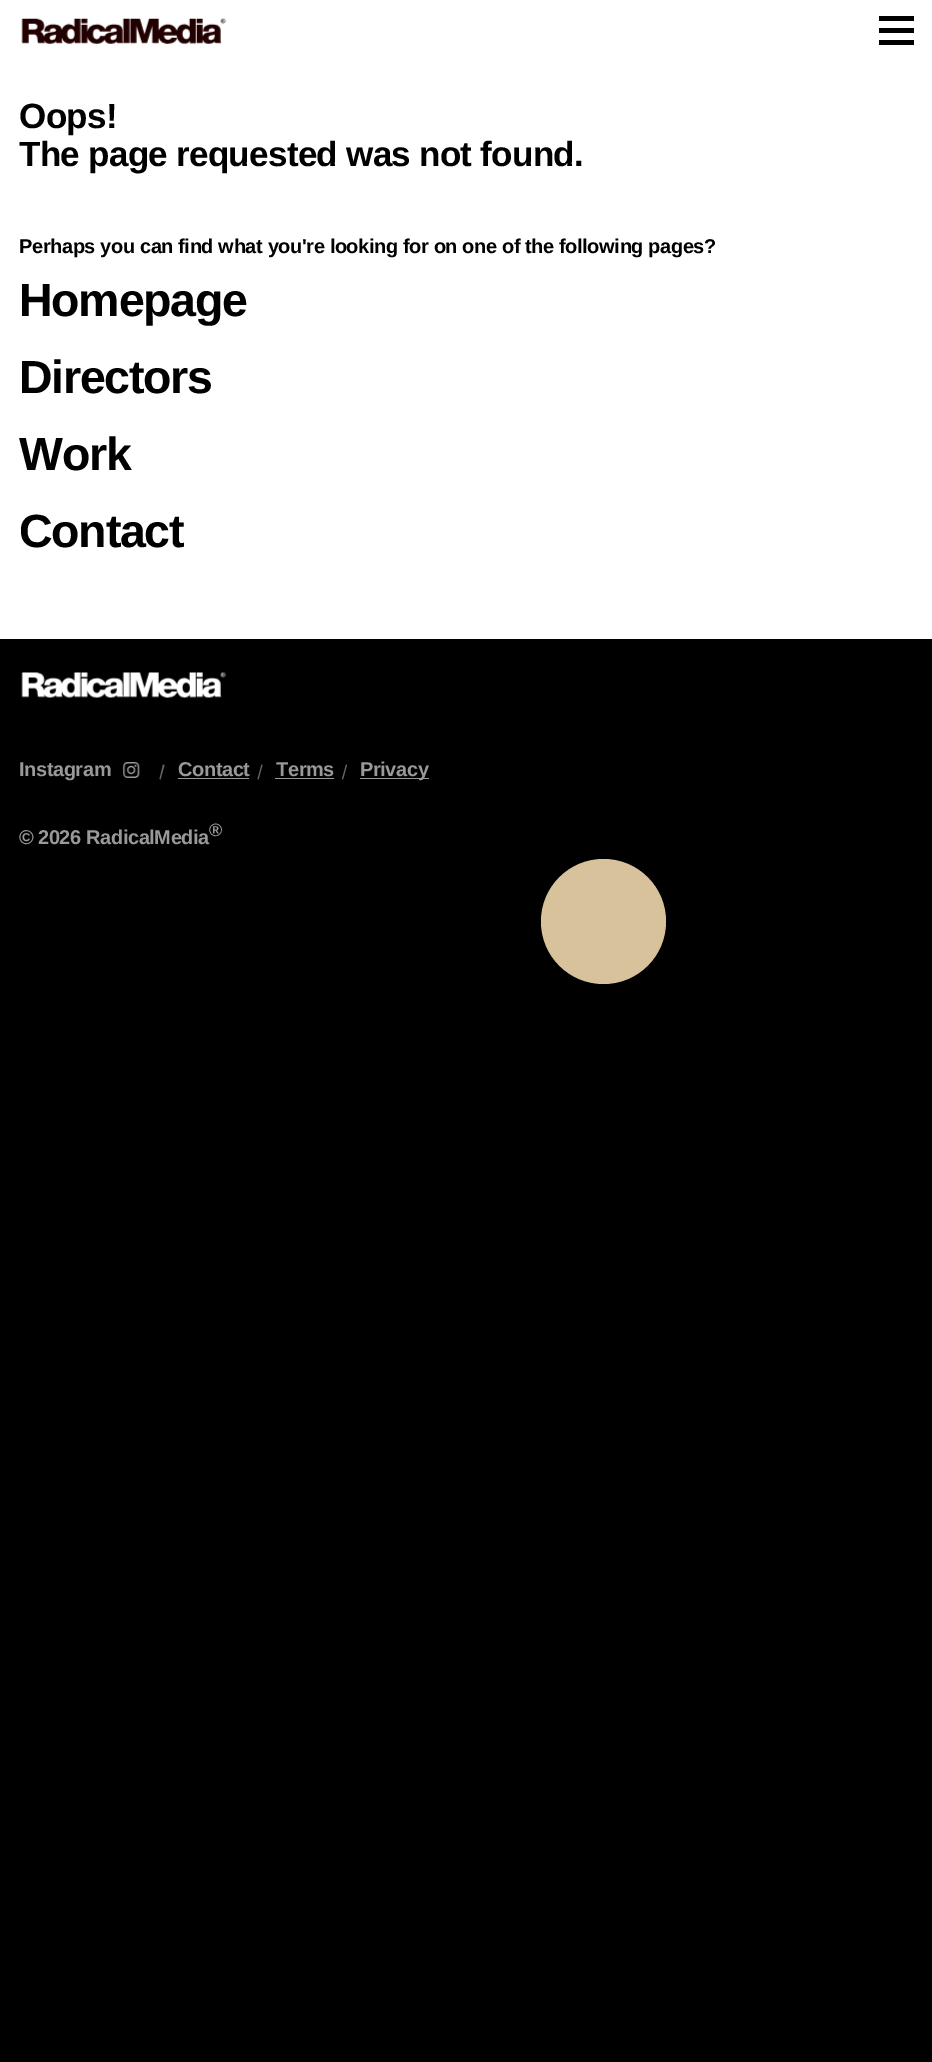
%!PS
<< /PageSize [932 2062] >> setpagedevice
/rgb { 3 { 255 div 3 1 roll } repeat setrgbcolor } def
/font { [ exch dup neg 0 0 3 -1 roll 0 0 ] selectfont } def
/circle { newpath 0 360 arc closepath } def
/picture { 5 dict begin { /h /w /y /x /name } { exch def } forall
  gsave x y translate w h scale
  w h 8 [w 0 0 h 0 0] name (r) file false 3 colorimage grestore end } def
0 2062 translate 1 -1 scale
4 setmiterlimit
0 0 0 rgb
0 0 932 2062 rectfill
255 255 255 rgb
0 0 932 639 rectfill
(img_01.rgb) 21 18 205 26 picture
0 0 0 rgb
879 16 35 5 rectfill
879 28 35 5 rectfill
879 40 35 5 rectfill
(img_02.rgb) 21 672 205 26 picture
(img_03.rgb) 122 762 18 16 picture
102 102 102 rgb
163 764.5 moveto 1.5 0.5 rlineto -4 14.5 rlineto -1 -0.5 rlineto closepath fill
153 153 153 rgb
178 778 71 1 rectfill
102 102 102 rgb
261.5 764.5 moveto 1 0.5 rlineto -4 14.5 rlineto -1 -0.5 rlineto closepath fill
153 153 153 rgb
275 778 59 1 rectfill
102 102 102 rgb
346 764.5 moveto 1 0.5 rlineto -4 14.5 rlineto -1 -0.5 rlineto closepath fill
153 153 153 rgb
360 778 69 1 rectfill
216 194 156 rgb
603.5 921.5 62.5 circle fill
/LiberationSans-Bold 35 font
0 0 0 rgb
19 128 moveto -0.7 0 (Oops!) ashow
19 166 moveto -0.7 0 (The page requested was not found.) ashow
/LiberationSans-Bold 20 font
19 253 moveto -0.4 0 (Perhaps you can find what you're looking for on one of the following pages?) ashow
/LiberationSans-Bold 46.5 font
19 316 moveto -1.25 0 (Homepage) ashow
19 393 moveto -1.25 0 (Directors) ashow
19 470 moveto -1.25 0 (Work) ashow
19 547 moveto -1.25 0 (Contact) ashow
/LiberationSans-Bold 20 font
153 153 153 rgb
19 776 moveto -0.4 0 (Instagram) ashow
178 776 moveto -0.4 0 (Contact) ashow
276 776 moveto -0.4 0 (Terms) ashow
360 776 moveto -0.4 0 (Privacy) ashow
19 844 moveto -0.4 0 (©) ashow
38 844 moveto -0.4 0 (2026 RadicalMedia) ashow
/LiberationSans-Bold 18 font
209 836 moveto -0.4 0 (®) ashow
showpage
